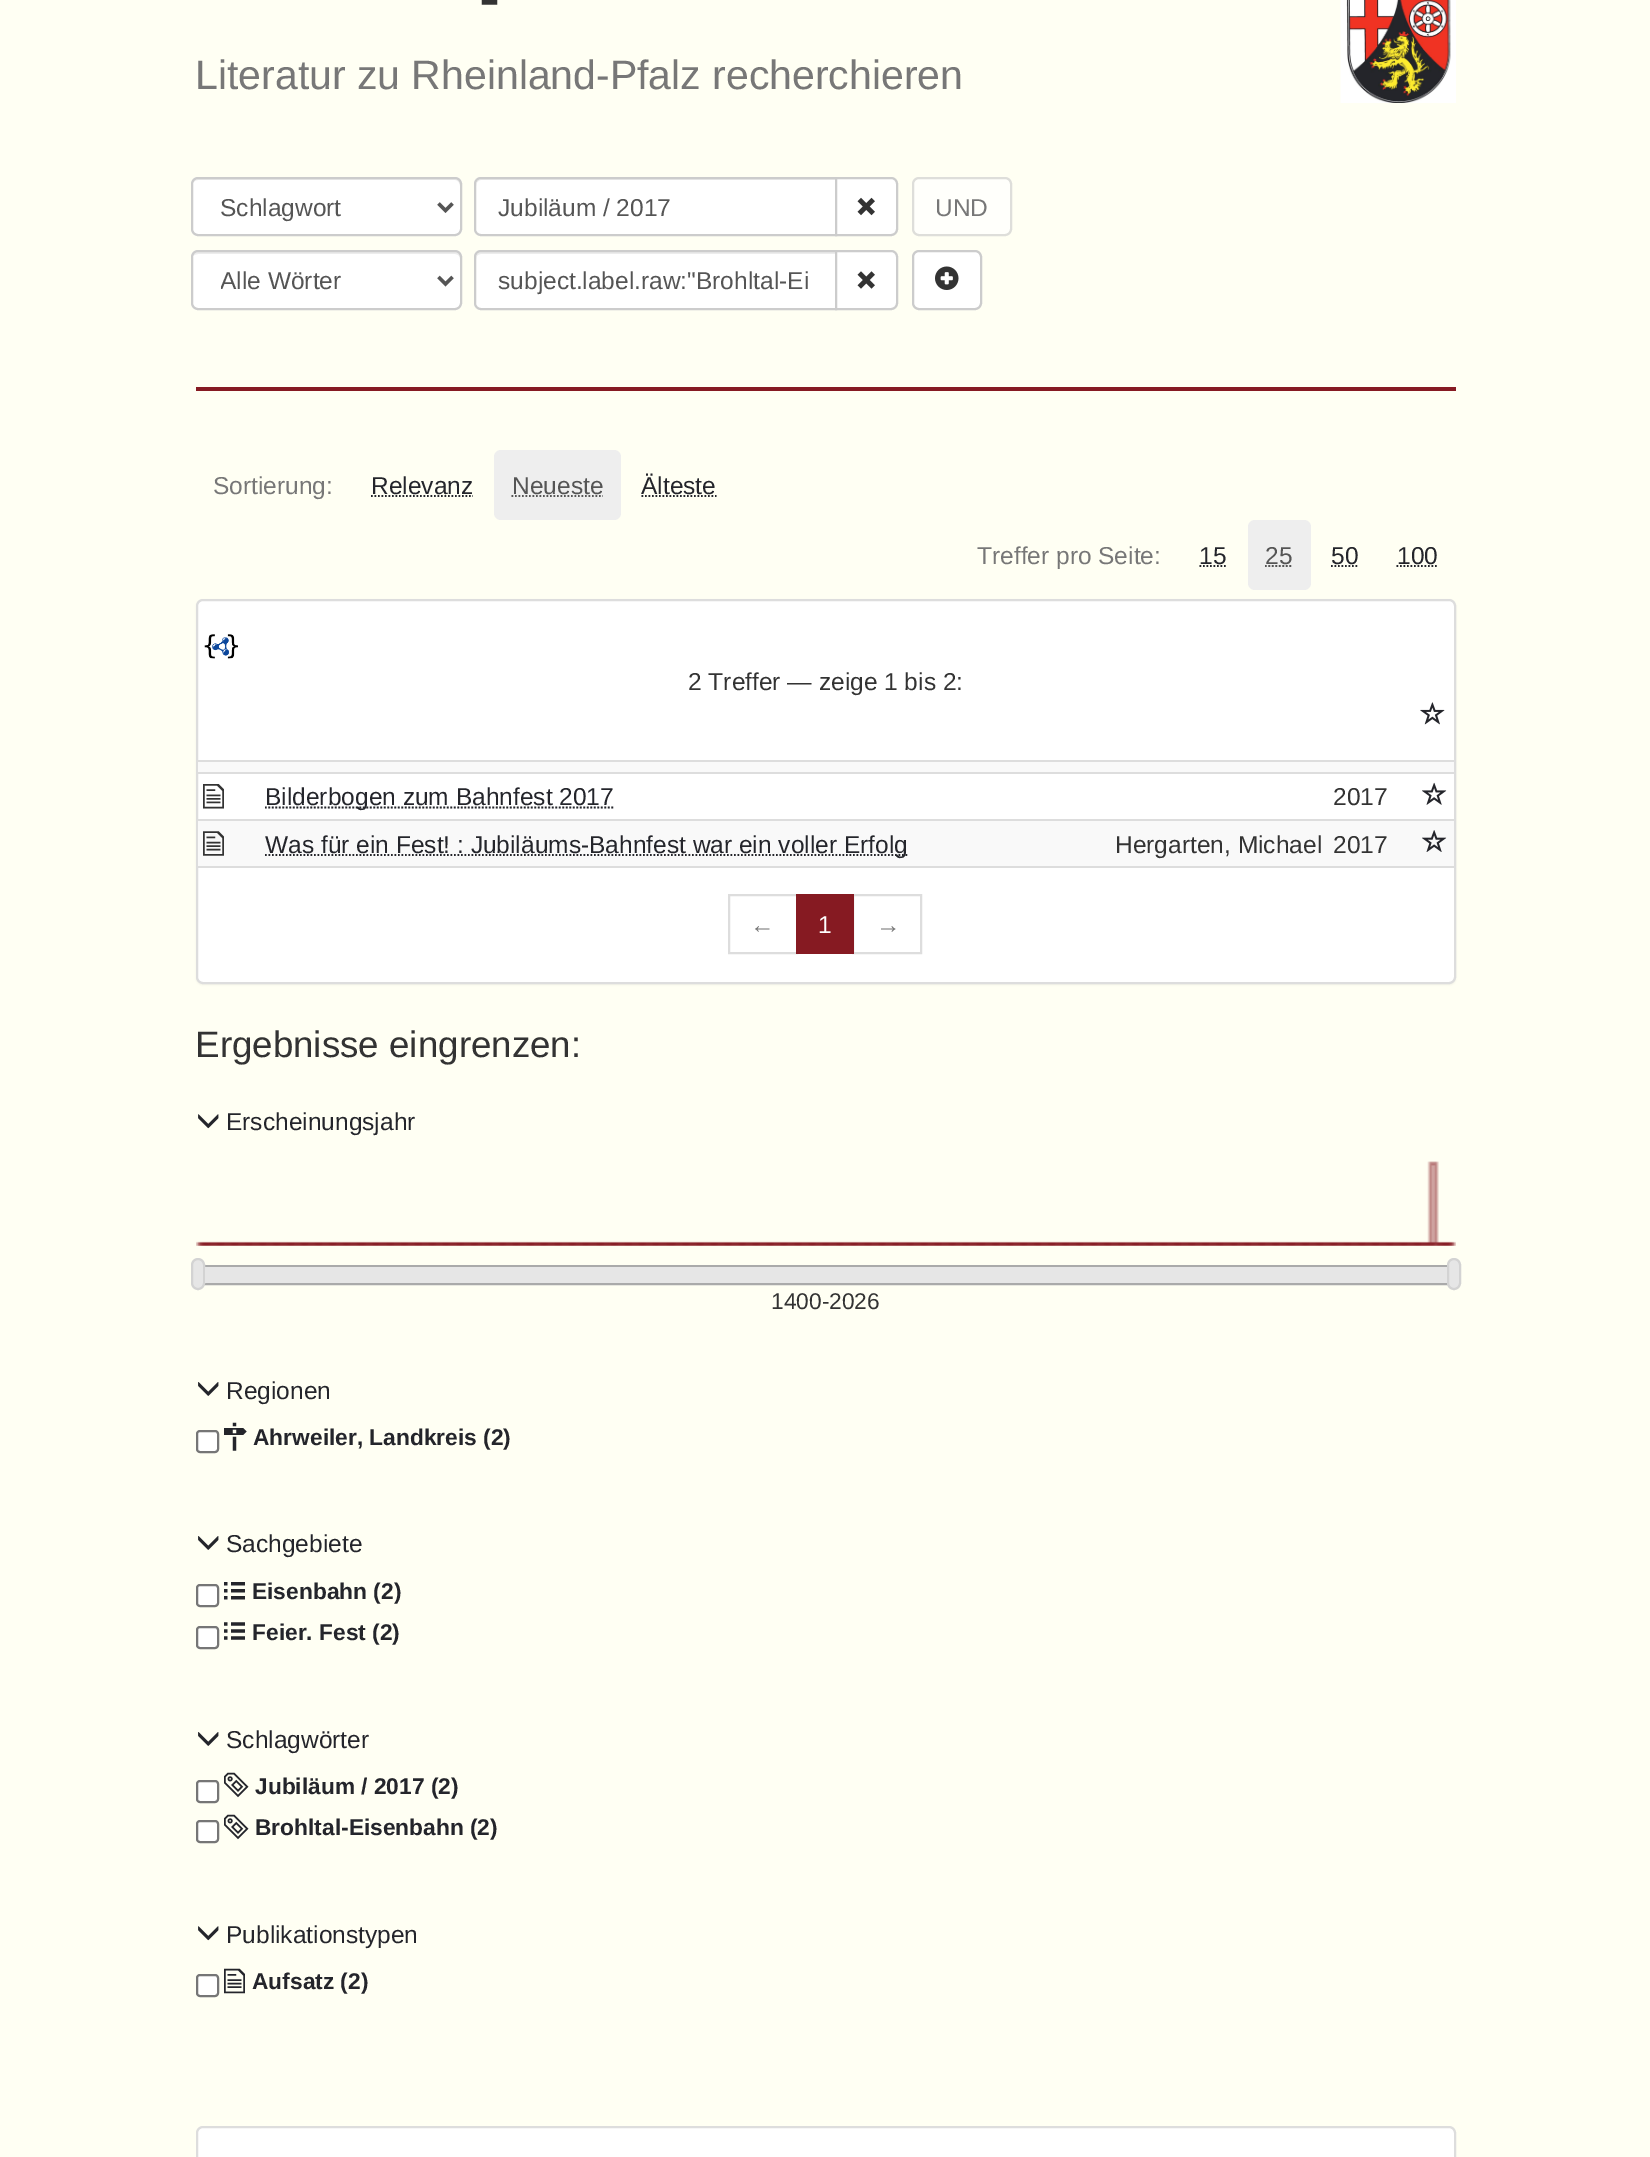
%!PS
<< /PageSize [1650 2157] /PageUsesTransparency true >> setpagedevice
/rgb { 3 { 255 div 3 1 roll } repeat setrgbcolor } def
/font { [ exch dup neg 0 0 3 -1 roll 0 0 ] selectfont } def
/text { moveto show } def
/alpha { dup .setfillconstantalpha .setstrokeconstantalpha } def
/roundrect { 5 dict begin { /r /h /w /y /x } { exch def } forall
  x r add y moveto x w add y 2 copy h add r arct x w add y h add x 1 index r arct
  x y h add x y r arct x y 2 copy exch w add exch r arct closepath end } def
/shadow { 12 dict begin { /a /b /q /h /w /y /x } { exch def } forall gsave /was 0 def
  9 -2 -9 { dup b mul 4 div /e exch def 1 sub .425 mul 2.718 exch exp 1 add a .99 .min exch div /now exch def
    1 1 now sub 1 was sub div sub alpha /was now def
    w h .min e 2 mul add 0 gt { x e sub y e sub w e 2 mul add h e 2 mul add
      q e add b .6 mul add w h .min 2 div e add .min 0 .max roundrect fill } if } for grestore end } def
/picture { 5 dict begin { /h /w /y /x /name } { exch def } forall
  gsave x y translate w h scale
  w h 8 [w 0 0 h 0 0] name (r) file false 3 colorimage grestore end } def
0 .pushpdf14devicefilter
0 2157 translate 1 -1 scale
4 setmiterlimit
255 255 243 rgb
0 0 1650 2157 rectfill
(img_01.rgb) 1340 0 116 103 picture
255 255 255 rgb
191 177 271 59 7 roundrect fill
236 236 236 rgb
198 180 moveto 257 0 rlineto 3 0 5 3 5 6 rcurveto 0 -2 rlineto 0 -3 -2 -5 -5 -5 rcurveto -257 0 rlineto -2 0 -4 2 -5 4 rcurveto 1 -2 3 -3 5 -3 rcurveto closepath fill
204 204 204 rgb
2 setlinewidth
192 178 269 57 6 roundrect stroke
85 85 85 rgb
3.5 setlinewidth
438.5 203.5 moveto 7 7 rlineto 7 -7 rlineto stroke
255 255 255 rgb
481 177 moveto 356 0 rlineto 0 59 rlineto -356 0 rlineto -4 0 -7 -3 -7 -7 rcurveto 0 -45 rlineto 0 -4 3 -7 7 -7 rcurveto closepath fill
236 236 236 rgb
481 180 moveto 354 0 rlineto 0 -1 rlineto -354 0 rlineto -4 0 -5 4 -5 7 rcurveto 0 -3 2 -6 5 -6 rcurveto closepath fill
204 204 204 rgb
2 setlinewidth
481 178 moveto 355 0 rlineto 0 57 rlineto -355 0 rlineto -3.5 0 -6 -2.5 -6 -6 rcurveto 0 -45 rlineto 0 -3.5 2.5 -6 6 -6 rcurveto closepath stroke
255 255 255 rgb
836 178 moveto 55 0 rlineto 3.5 0 6 2.5 6 6 rcurveto 0 45 rlineto 0 3.5 -2.5 6 -6 6 rcurveto -55 0 rlineto closepath gsave fill grestore
204 204 204 rgb
stroke
(img_02.rgb) 857 197 18 19 picture
255 255 251 rgb
913 178 98 57 6 roundrect gsave fill grestore
222 222 218 rgb
stroke
255 255 255 rgb
191 250 271 60 7 roundrect fill
236 236 236 rgb
198 254 moveto 257 0 rlineto 3 0 5 2 5 5 rcurveto 0 -2 rlineto 0 -3 -2 -5 -5 -5 rcurveto -257 0 rlineto -2 0 -5 2 -5 4 rcurveto 1 -1 3 -2 5 -2 rcurveto closepath fill
204 204 204 rgb
192 251 269 58 6 roundrect stroke
85 85 85 rgb
3.5 setlinewidth
438.5 277 moveto 7 7 rlineto 7 -7 rlineto stroke
255 255 255 rgb
481 250 moveto 356 0 rlineto 0 60 rlineto -356 0 rlineto -4 0 -7 -3 -7 -7 rcurveto 0 -46 rlineto 0 -4 3 -7 7 -7 rcurveto closepath fill
236 236 236 rgb
481 254 moveto 354 0 rlineto 0 -2 rlineto -354 0 rlineto -4 0 -5 4 -5 7 rcurveto 0 -3 2 -5 5 -5 rcurveto closepath fill
204 204 204 rgb
2 setlinewidth
481 251 moveto 355 0 rlineto 0 58 rlineto -355 0 rlineto -3.5 0 -6 -2.5 -6 -6 rcurveto 0 -46 rlineto 0 -3.5 2.5 -6 6 -6 rcurveto closepath stroke
255 255 255 rgb
836 251 moveto 55 0 rlineto 3.5 0 6 2.5 6 6 rcurveto 0 46 rlineto 0 3.5 -2.5 6 -6 6 rcurveto -55 0 rlineto closepath gsave fill grestore
204 204 204 rgb
stroke
(img_03.rgb) 857 271 18 18 picture
255 255 255 rgb
913 251 68 58 6 roundrect gsave fill grestore
204 204 204 rgb
stroke
(img_04.rgb) 935 266 24 24 picture
134 26 34 rgb
196 387 1260 4 rectfill
36 37 43 rgb
1.8 setlinewidth
[1.75 1.75] 0 setdash
371 496 moveto 102 0 rlineto stroke
238 238 238 rgb
494 450 127 70 7 roundrect fill
85 85 85 rgb
511.5 496 moveto 91.5 0 rlineto stroke
36 37 43 rgb
641.5 496 moveto 75 0 rlineto stroke
1199.5 566 moveto 27 0 rlineto stroke
238 238 238 rgb
1248 520 63 70 7 roundrect fill
85 85 85 rgb
1265 566 moveto 27.5 0 rlineto stroke
36 37 43 rgb
1331 566 moveto 27 0 rlineto stroke
1396.5 566 moveto 41 0 rlineto stroke
0 0 0 rgb
196 600 1260 385 7 1 0.05 shadow
255 255 255 rgb
197 600 1258 383 6 roundrect gsave fill grestore
221 221 221 rgb
2 setlinewidth
[] 0 setdash
stroke
(img_05.rgb) 204 634 34 25 picture
(img_06.rgb) 1420 702 25 23 picture
198 760 1256 2 rectfill
249 249 249 rgb
198 762 1256 10 rectfill
221 221 221 rgb
196 772 1258 2 rectfill
(img_07.rgb) 1422 782 25 23 picture
(img_08.rgb) 203 784 21 25 picture
36 37 43 rgb
1.8 setlinewidth
[1.75 1.75] 0 setdash
265 807.5 moveto 348.5 0 rlineto stroke
249 249 249 rgb
198 821 1256 45 rectfill
221 221 221 rgb
196 819 1258 2 rectfill
(img_09.rgb) 1422 830 25 22 picture
(img_10.rgb) 203 831 21 25 picture
36 37 43 rgb
265 855 moveto 642.5 0 rlineto stroke
221 221 221 rgb
198 866 1256 2 rectfill
2 setlinewidth
[] 0 setdash
729 895 68 58 rectstroke
853 895 68 58 rectstroke
134 26 34 rgb
796 894 58 60 rectfill
(img_11.rgb) 198 1114 21 15 picture
(img_12.rgb) 196 1161 1260 85 picture
170 170 170 rgb
197 1266 1258 18 rectstroke
230 230 230 rgb
192 1259 12 30 6 roundrect gsave fill grestore
211 211 211 rgb
stroke
230 230 230 rgb
205 1267 1242 16 rectfill
1448 1259 12 30 6 roundrect gsave fill grestore
211 211 211 rgb
stroke
(img_13.rgb) 198 1382 21 14 picture
255 255 255 rgb
197 1431 21 21 3 roundrect gsave fill grestore
118 118 118 rgb
stroke
(img_14.rgb) 224 1422 23 29 picture
(img_13.rgb) 198 1536 21 14 picture
255 255 255 rgb
197 1585 21 21 3 roundrect gsave fill grestore
118 118 118 rgb
stroke
(img_15.rgb) 224 1582 21 18 picture
255 255 255 rgb
197 1627 21 21 3 roundrect gsave fill grestore
118 118 118 rgb
stroke
(img_16.rgb) 224 1622 21 18 picture
(img_13.rgb) 198 1732 21 14 picture
255 255 255 rgb
197 1781 21 21 3 roundrect gsave fill grestore
118 118 118 rgb
stroke
(img_17.rgb) 224 1772 25 26 picture
255 255 255 rgb
197 1821 21 21 3 roundrect gsave fill grestore
118 118 118 rgb
stroke
(img_17.rgb) 224 1814 25 26 picture
(img_11.rgb) 198 1926 21 15 picture
255 255 255 rgb
197 1975 21 21 3 roundrect gsave fill grestore
118 118 118 rgb
stroke
(img_18.rgb) 224 1968 21 26 picture
255 255 255 rgb
197 2127 1258 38 6 roundrect gsave fill grestore
221 221 221 rgb
stroke
/LiberationSans-Regular 63 font
51 51 51 rgb
(-) 479 19 text
/LiberationSans-Regular 41 font
119 119 119 rgb
(Literatur zu Rheinland-Pfalz recherchieren) 195 89 text
/LiberationSans-Regular 24.5 font
85 85 85 rgb
(Schlagwort) 220 216 text
(Jubiläum / 2017) 498 216 text
119 119 119 rgb
(UND) 935 216 text
gsave
221 264 190 32 rectclip
85 85 85 rgb
(Alle Wörter) 220 289 text
grestore
85 85 85 rgb
(subject.label.raw:"Brohltal-Ei) 498 289 text
119 119 119 rgb
(Sortierung:) 213 494 text
36 37 43 rgb
(Relevanz) 371 494 text
85 85 85 rgb
(Neueste) 512 494 text
36 37 43 rgb
(Älteste) 641 494 text
119 119 119 rgb
(Treffer pro Seite:) 977 564 text
36 37 43 rgb
(15) 1199 564 text
85 85 85 rgb
(25) 1265 564 text
36 37 43 rgb
(50) 1331 564 text
(100) 1397 564 text
51 51 51 rgb
(2 Treffer — zeige 1 bis 2:) 688 690 text
36 37 43 rgb
(Bilderbogen zum Bahnfest 2017) 265 805 text
51 51 51 rgb
(2017) 1333 805 text
36 37 43 rgb
(Was für ein Fest! : Jubiläums-Bahnfest war ein voller Erfolg) 265 853 text
51 51 51 rgb
(Hergarten, Michael) 1115 853 text
(2017) 1333 853 text
119 119 119 rgb
(←) 750 933 text
255 255 255 rgb
(1) 818 933 text
119 119 119 rgb
(→) 876 933 text
/LiberationSans-Regular 36.75 font
51 51 51 rgb
(Ergebnisse eingrenzen:) 195 1057 text
/LiberationSans-Regular 24.5 font
36 37 43 rgb
(Erscheinungsjahr) 226 1130 text
/LiberationSans-Regular 22.75 font
51 51 51 rgb
(1400-2026) 771 1309 text
/LiberationSans-Regular 24.5 font
36 37 43 rgb
(Regionen) 226 1399 text
/LiberationSans-Bold 22.75 font
(Ahrweiler, Landkreis \(2\)) 253 1445 text
/LiberationSans-Regular 24.5 font
(Sachgebiete) 226 1552 text
/LiberationSans-Bold 22.75 font
(Eisenbahn \(2\)) 252 1599 text
(Feier. Fest \(2\)) 252 1640 text
/LiberationSans-Regular 24.5 font
(Schlagwörter) 226 1748 text
/LiberationSans-Bold 22.75 font
(Jubiläum / 2017 \(2\)) 255 1794 text
(Brohltal-Eisenbahn \(2\)) 255 1835 text
/LiberationSans-Regular 24.5 font
(Publikationstypen) 226 1943 text
/LiberationSans-Bold 22.75 font
(Aufsatz \(2\)) 252 1989 text
.poppdf14devicefilter showpage
